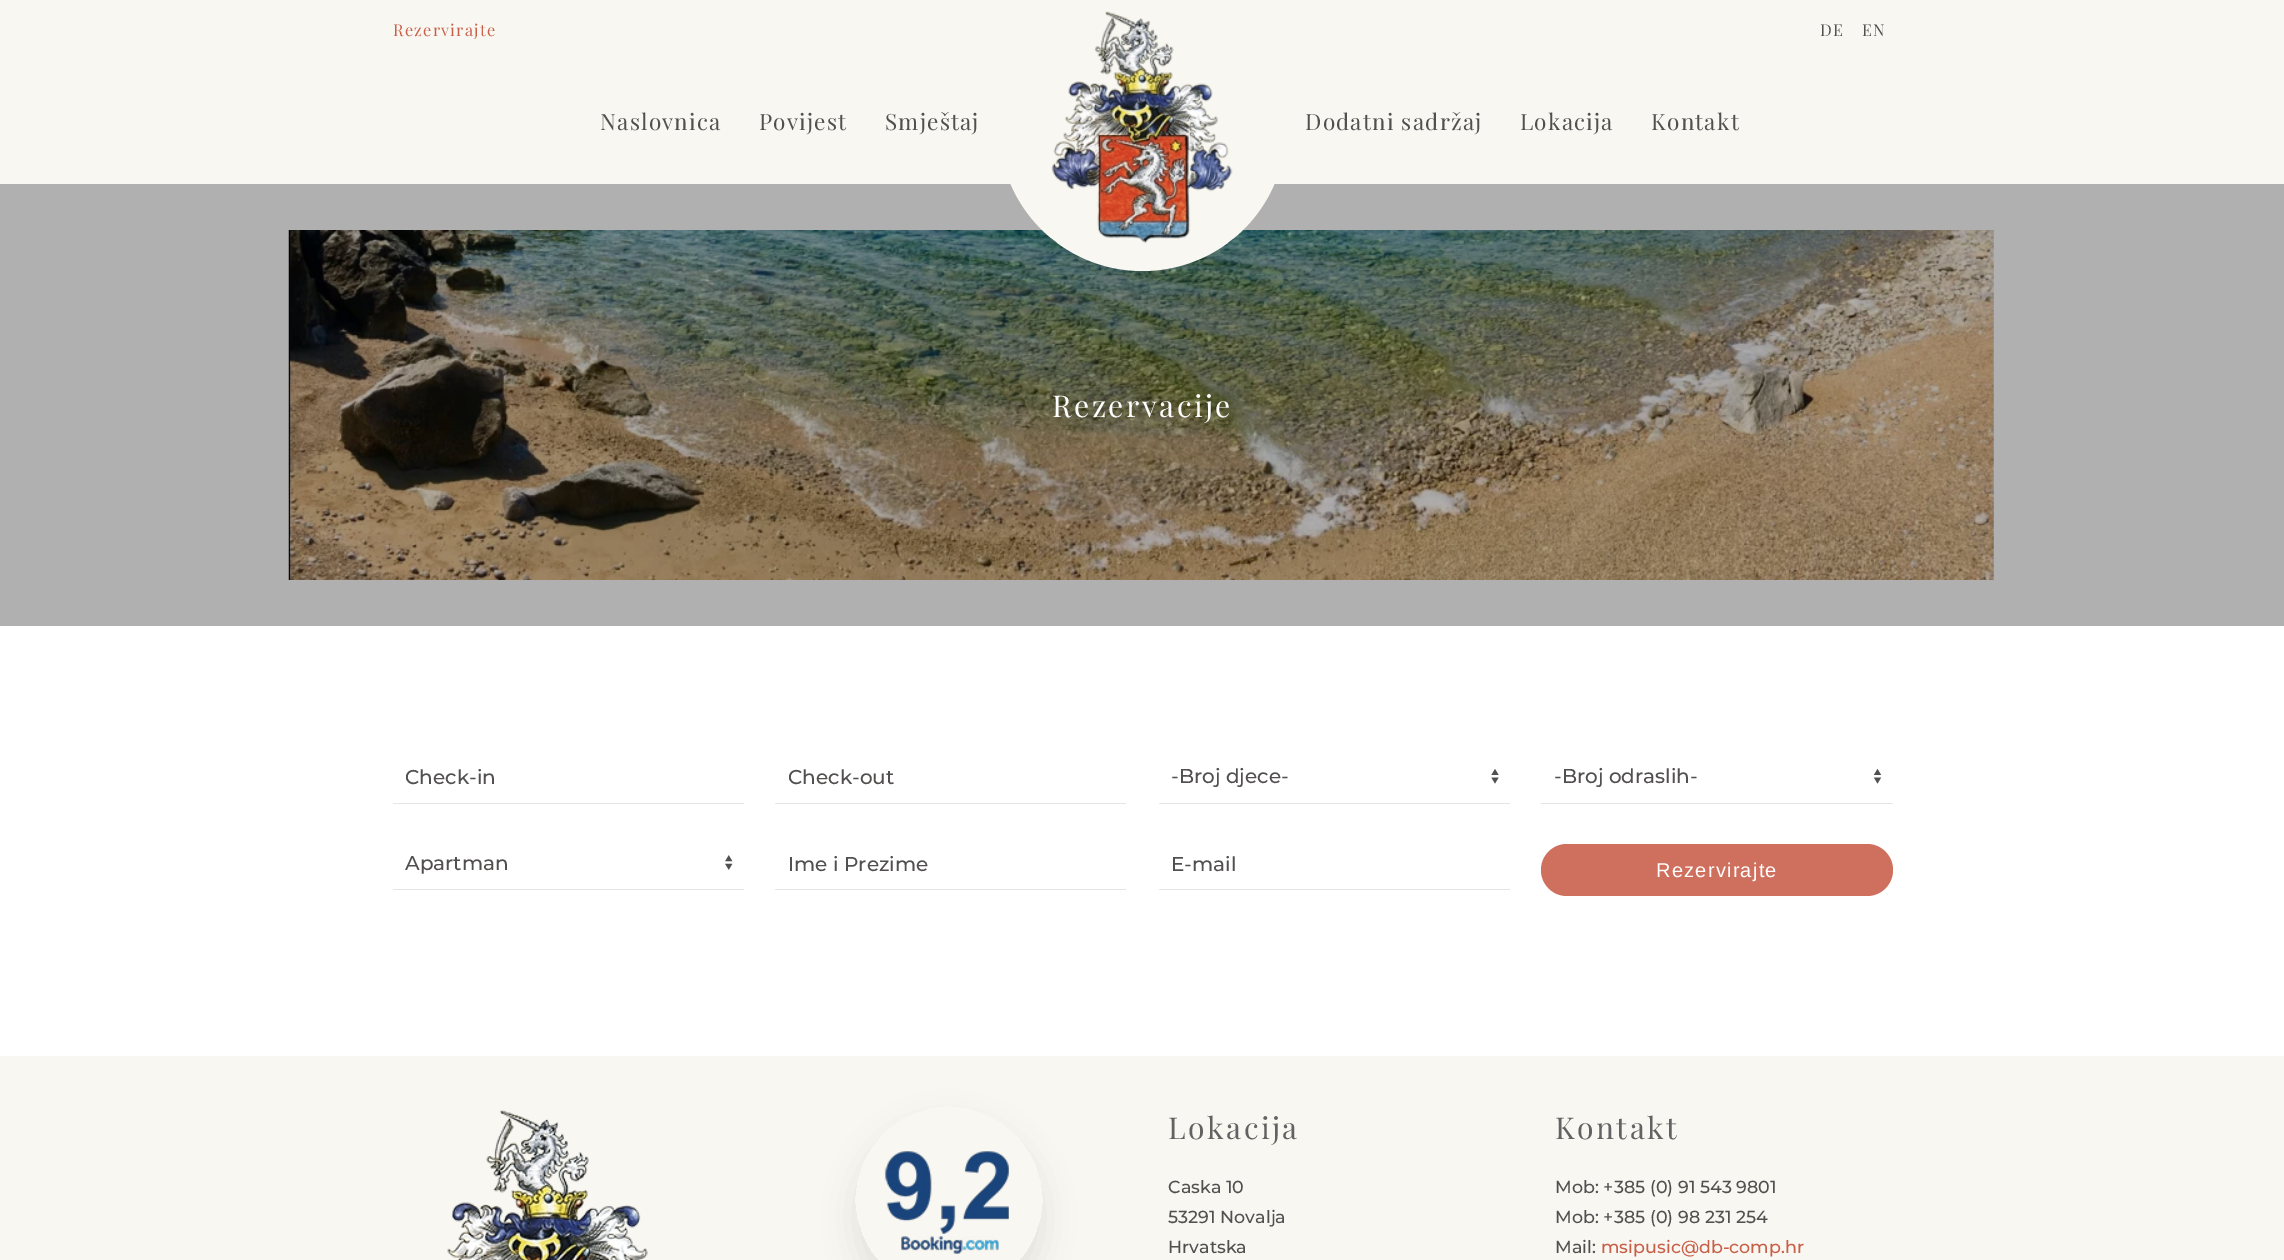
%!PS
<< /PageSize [2284 1260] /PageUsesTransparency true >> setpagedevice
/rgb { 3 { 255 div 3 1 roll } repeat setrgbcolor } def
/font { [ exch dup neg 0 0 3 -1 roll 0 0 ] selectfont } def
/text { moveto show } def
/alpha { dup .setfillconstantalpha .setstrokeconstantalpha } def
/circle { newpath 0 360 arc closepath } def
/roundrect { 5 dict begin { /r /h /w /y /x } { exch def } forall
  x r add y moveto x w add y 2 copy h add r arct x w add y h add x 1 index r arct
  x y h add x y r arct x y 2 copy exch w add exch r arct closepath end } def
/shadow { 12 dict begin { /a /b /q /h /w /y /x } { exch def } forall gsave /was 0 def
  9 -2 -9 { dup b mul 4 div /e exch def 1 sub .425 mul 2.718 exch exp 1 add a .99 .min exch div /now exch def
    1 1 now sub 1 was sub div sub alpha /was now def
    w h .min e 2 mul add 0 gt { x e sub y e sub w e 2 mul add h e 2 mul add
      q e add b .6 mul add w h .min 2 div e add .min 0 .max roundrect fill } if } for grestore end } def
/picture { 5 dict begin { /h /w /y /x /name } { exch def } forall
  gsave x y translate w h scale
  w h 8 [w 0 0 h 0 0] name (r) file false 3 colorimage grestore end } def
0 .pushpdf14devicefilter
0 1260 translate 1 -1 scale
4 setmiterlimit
255 255 255 rgb
0 0 2284 1260 rectfill
176 176 176 rgb
0 184 2284 442 rectfill
248 247 241 rgb
0 0 2284 184 rectfill
(img_02.rgb) 288 230 1706 350 picture
1142.5 127.5 143.5 circle fill
(img_01.rgb) 1051 11 182 232 picture
229 229 229 rgb
393 803 351 1 rectfill
(img_03.rgb) 725 855 8 15 picture
393 889 351 1 rectfill
775 803 351 1 rectfill
775 889 351 1 rectfill
(img_04.rgb) 1491 769 8 15 picture
1159 803 351 1 rectfill
1159 889 351 1 rectfill
(img_05.rgb) 1873 768 9 16 picture
1541 803 352 1 rectfill
206 112 93 rgb
1541 844 352 52 26 roundrect fill
248 247 241 rgb
0 1056 2284 204 rectfill
(img_06.rgb) 447 1110 201 150 picture
gsave
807 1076 moveto 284 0 rlineto 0 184 rlineto -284 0 rlineto closepath 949 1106 moveto 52 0 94 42 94 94 rcurveto 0 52 -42 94 -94 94 rcurveto -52 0 -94 -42 -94 -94 rcurveto 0 -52 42 -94 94 -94 rcurveto closepath eoclip newpath
0 0 0 rgb
855 1124 188 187 93.5 15.5 0.08 shadow
grestore
(img_07.rgb) 884 1151 125 103 picture
/PlayfairDisplay-Regular 16.25 font
200 95 73 rgb
393 36 moveto 1.25 0 (Rezervirajte) ashow
82 79 79 rgb
1820 36 moveto 1.25 0 (DE) ashow
1862 36 moveto 1.25 0 (EN) ashow
/PlayfairDisplay-Regular 22.5 font
600 130 moveto 1.25 0 (Naslovnica) ashow
759 130 moveto 1.25 0 (Povijest) ashow
885 130 moveto 1.25 0 (Smještaj) ashow
1305 130 moveto 1.25 0 (Dodatni sadržaj) ashow
1520 130 moveto 1.25 0 (Lokacija) ashow
1651 130 moveto 1.25 0 (Kontakt) ashow
/PlayfairDisplay-Regular 30 font
255 255 255 rgb
1052 417 moveto 2.5 0 (Rezervacije) ashow
/Montserrat-Medium 20 font
82 79 79 rgb
(Check-in) 405 784 text
(Apartman) 405 870 text
(Check-out) 788 784 text
(Ime i Prezime) 788 871 text
(-Broj djece-) 1171 783 text
(E-mail) 1171 871 text
(-Broj odraslih-) 1554 783 text
/LiberationSans-Regular 20 font
255 255 255 rgb
1656 877 moveto 1.25 0 (Rezervirajte) ashow
/PlayfairDisplay-Regular 30 font
98 98 98 rgb
1168 1139 moveto 2.5 0 (Lokacija) ashow
/Montserrat-Medium 17.5 font
82 79 79 rgb
(Caska 10) 1168 1193 text
(53291 Novalja) 1168 1223 text
(Hrvatska) 1168 1253 text
/PlayfairDisplay-Regular 30 font
98 98 98 rgb
1555 1139 moveto 2.5 0 (Kontakt) ashow
/Montserrat-Medium 17.5 font
82 79 79 rgb
(Mob: +385 \(0\) 91 543 9801) 1555 1193 text
(Mob: +385 \(0\) 98 231 254) 1555 1223 text
(Mail:) 1555 1253 text
200 95 73 rgb
(msipusic@db-comp.hr) 1601 1253 text
.poppdf14devicefilter showpage
